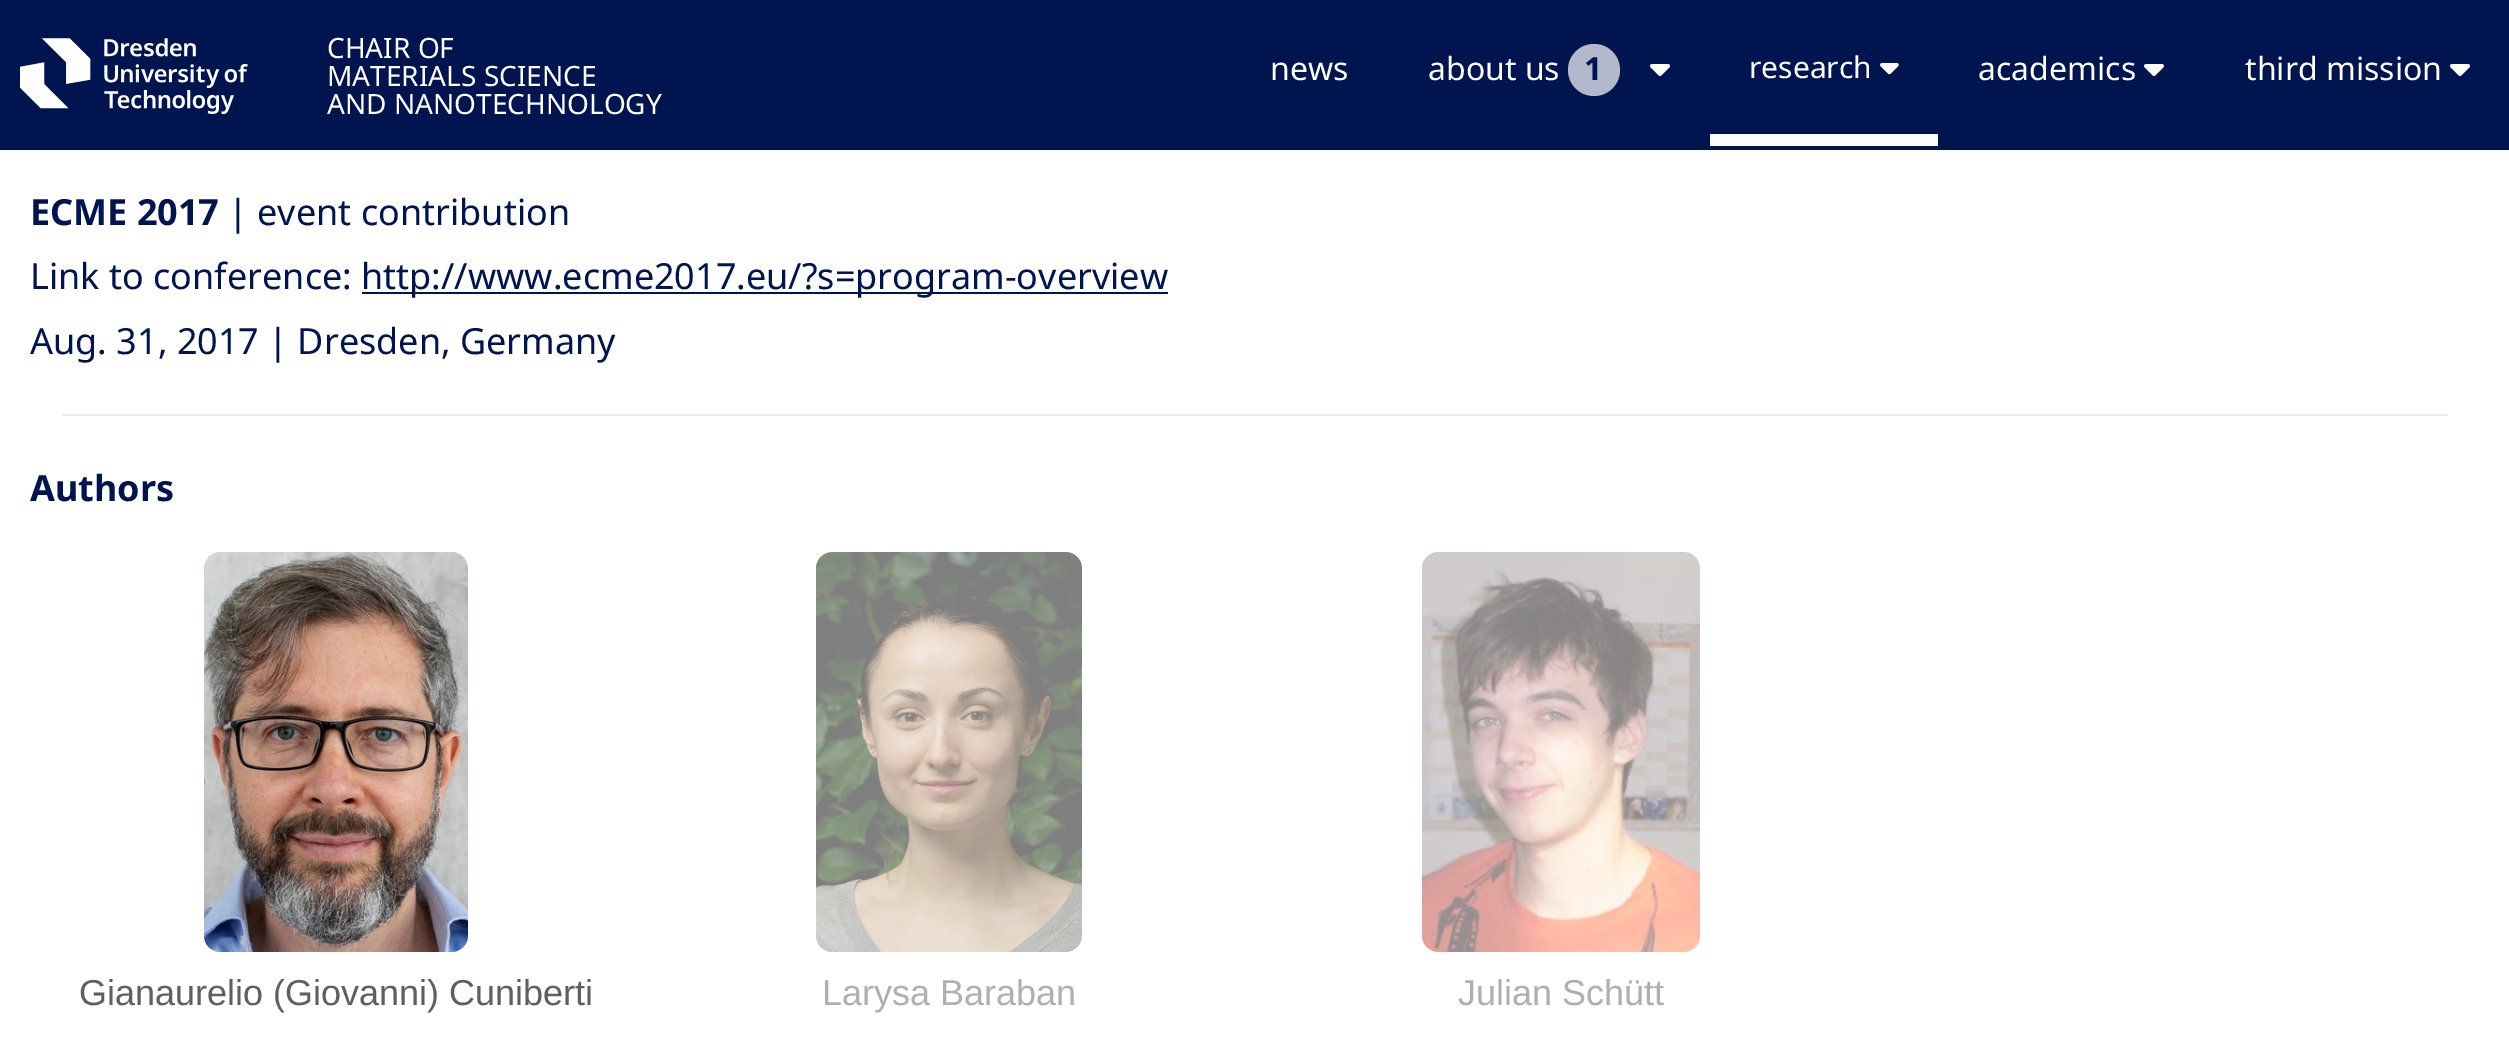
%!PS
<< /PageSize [2509 1046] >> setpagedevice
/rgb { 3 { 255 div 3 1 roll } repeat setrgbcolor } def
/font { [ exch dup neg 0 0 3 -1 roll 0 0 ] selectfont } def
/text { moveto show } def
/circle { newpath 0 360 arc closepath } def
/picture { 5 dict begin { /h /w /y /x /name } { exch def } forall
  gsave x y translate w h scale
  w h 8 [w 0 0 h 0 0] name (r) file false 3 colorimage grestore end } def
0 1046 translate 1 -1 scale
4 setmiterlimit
255 255 255 rgb
0 0 2509 1046 rectfill
0 20 80 rgb
0 0 2509 150 rectfill
(img_01.rgb) 20 38 228 76 picture
179 185 203 rgb
1594 70 26 circle fill
(img_02.rgb) 1650 64 20 12 picture
255 255 255 rgb
1710 134 228 12 rectfill
(img_03.rgb) 1880 63 19 12 picture
(img_02.rgb) 2144 64 20 12 picture
(img_02.rgb) 2450 64 20 12 picture
0 20 80 rgb
362 292 806 2 rectfill
238 238 238 rgb
62 414 2386 2 rectfill
(img_04.rgb) 204 552 264 400 picture
(img_05.rgb) 816 552 266 400 picture
(img_06.rgb) 1422 552 278 400 picture
/NotoSans-Regular 28 font
255 255 255 rgb
(CHAIR OF) 327 58 text
(MATERIALS SCIENCE) 327 86 text
(AND NANOTECHNOLOGY) 327 114 text
/NotoSans-Regular 32 font
(news) 1270 80 text
(about us) 1428 80 text
/NotoSans-Bold 32 font
0 20 80 rgb
(1) 1584 80 text
/NotoSans-Regular 30 font
255 255 255 rgb
(research) 1749 78 text
/NotoSans-Regular 32 font
(academics) 1978 80 text
(third mission) 2245 80 text
/NotoSans-Bold 36 font
0 20 80 rgb
(ECME 2017) 30 225 text
/NotoSans-Regular 36 font
(| event contribution) 228 225 text
(Link to conference:) 30 289 text
(http://www.ecme2017.eu/?s=program-overview) 361 289 text
(Aug. 31, 2017 | Dresden, Germany) 30 354 text
/NotoSans-Bold 36 font
(Authors) 30 501 text
/LiberationSans-Regular 36 font
95 95 95 rgb
(Gianaurelio \(Giovanni\) Cuniberti) 79 1005 text
175 175 175 rgb
(Larysa Baraban) 822 1005 text
(Julian Schütt) 1458 1005 text
showpage
